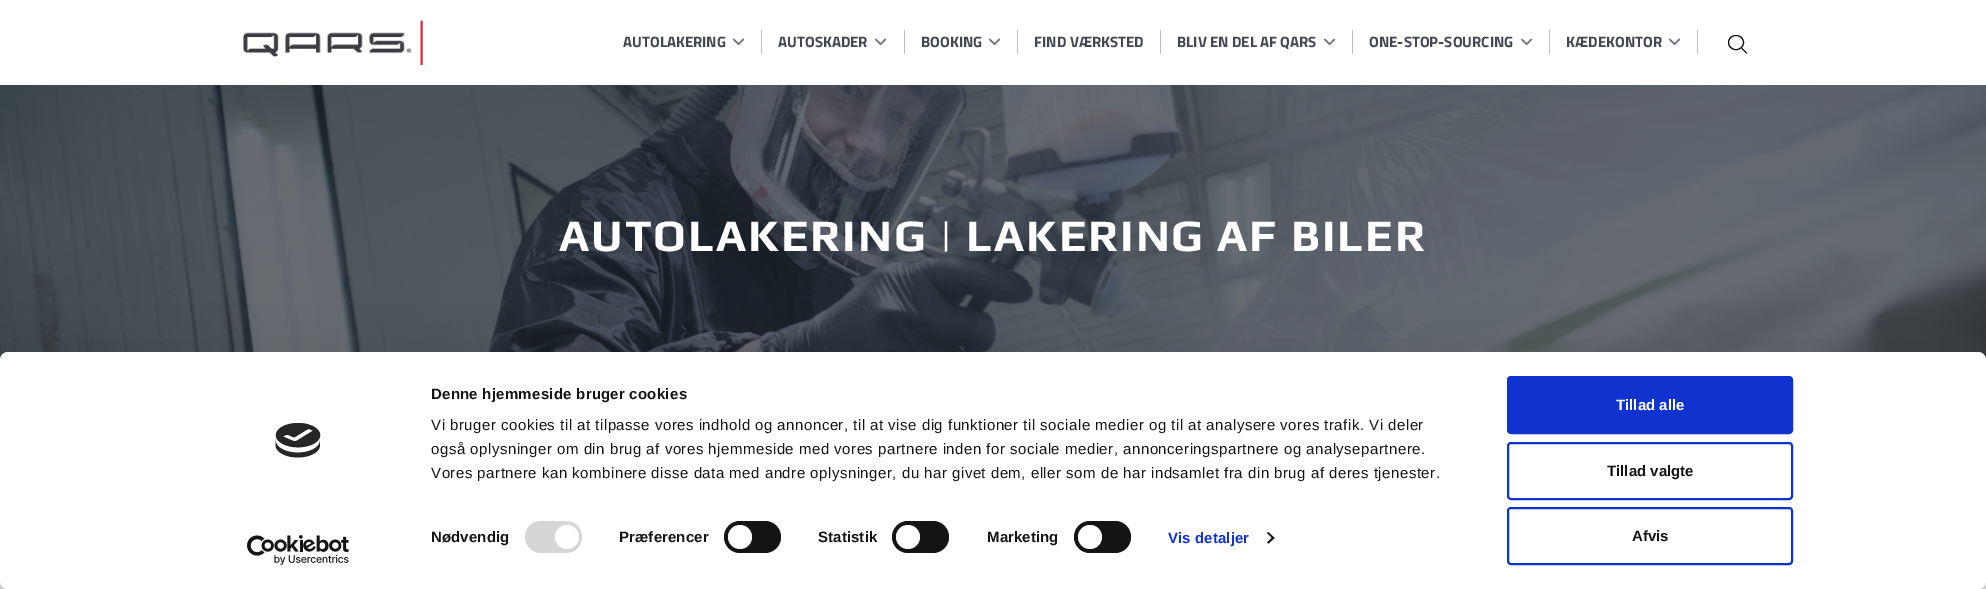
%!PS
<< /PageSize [1986 589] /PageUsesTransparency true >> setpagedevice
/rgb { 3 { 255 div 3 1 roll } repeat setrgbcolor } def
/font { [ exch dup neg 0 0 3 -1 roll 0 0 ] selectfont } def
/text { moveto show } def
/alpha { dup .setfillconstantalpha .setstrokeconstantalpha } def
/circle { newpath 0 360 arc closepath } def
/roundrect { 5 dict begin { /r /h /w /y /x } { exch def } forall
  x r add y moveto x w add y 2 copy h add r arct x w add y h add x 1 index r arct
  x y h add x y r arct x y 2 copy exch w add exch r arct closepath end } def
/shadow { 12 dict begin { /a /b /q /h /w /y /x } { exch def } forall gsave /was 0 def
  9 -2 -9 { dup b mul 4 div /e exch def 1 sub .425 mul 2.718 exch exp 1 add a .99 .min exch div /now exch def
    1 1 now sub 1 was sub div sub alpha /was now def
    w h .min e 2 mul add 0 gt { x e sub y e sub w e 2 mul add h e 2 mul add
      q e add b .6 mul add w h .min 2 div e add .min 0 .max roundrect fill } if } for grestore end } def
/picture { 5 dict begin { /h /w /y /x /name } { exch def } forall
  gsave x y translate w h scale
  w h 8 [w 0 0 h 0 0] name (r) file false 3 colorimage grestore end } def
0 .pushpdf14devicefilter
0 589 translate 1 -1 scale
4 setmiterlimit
255 255 255 rgb
0 0 1986 589 rectfill
(img_01.rgb) 243 20 180 45 picture
193 191 188 rgb
761 30 1 24 rectfill
(img_02.rgb) 733 38 12 8 picture
904 30 1 24 rectfill
(img_02.rgb) 875 38 12 8 picture
1017 30 1 24 rectfill
(img_02.rgb) 989 38 12 8 picture
1160 30 1 24 rectfill
1352 30 1 24 rectfill
(img_02.rgb) 1324 38 12 8 picture
1549 30 1 24 rectfill
(img_02.rgb) 1521 38 12 8 picture
1697 30 1 24 rectfill
(img_02.rgb) 1669 38 12 8 picture
0 0 0 rgb
1728.5 35.5 15 14 7 roundrect stroke
1741.5 48 moveto 0.5 -0.5 6 5 5.5 5.5 rcurveto -0.5 0.5 -6 -5 -5.5 -5.5 rcurveto closepath fill
242 239 235 rgb
0 581 1986 8 rectfill
(img_03.rgb) 0 85 1986 275 picture
0 0 0 rgb
0 382 1986 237 8 35 0.3 shadow
255 255 255 rgb
0 352 1986 237 8 roundrect fill
(img_04.rgb) 275 423 46 35 picture
(img_05.rgb) 247 535 102 30 picture
214 214 214 rgb
525 521 57 32 16 roundrect fill
255 255 255 rgb
567 537 12 circle fill
20 20 20 rgb
724 521 57 32 16 roundrect fill
255 255 255 rgb
740 537 12 circle fill
20 20 20 rgb
892 521 57 32 16 roundrect fill
255 255 255 rgb
908 537 12 circle fill
20 20 20 rgb
1074 521 57 32 16 roundrect fill
255 255 255 rgb
1090 537 12 circle fill
20 20 20 rgb
1268.5 532 moveto 6 6 rlineto -1.5 1 rlineto -6 -6 rlineto closepath fill
1273 536.5 moveto 1.5 1.5 rlineto -6 5.5 rlineto -1.5 -1 rlineto closepath fill
16 50 207 rgb
1508 377 284 56 3 roundrect gsave fill grestore
2 setlinewidth
stroke
1508 443 284 56 3 roundrect stroke
1508 508 284 56 3 roundrect stroke
/TitilliumWeb-Bold 15 font
66 71 83 rgb
(AUTOLAKERING) 623 47 text
(AUTOSKADER) 778 47 text
(BOOKING) 921 47 text
(FIND VÆRKSTED) 1034 47 text
(BLIV EN DEL AF QARS) 1177 47 text
(ONE-STOP-SOURCING) 1369 47 text
(KÆDEKONTOR) 1566 47 text
/Play-Bold 45 font
255 255 255 rgb
559 251 moveto 2 0 (AUTOLAKERING | LAKERING AF BILER) ashow
/LiberationSans-Bold 15 font
20 20 20 rgb
431 399 moveto 0.25 0 (Denne hjemmeside bruger cookies) ashow
/LiberationSans-Regular 15 font
431 430 moveto 0.5 0 (Vi bruger cookies til at tilpasse vores indhold og annoncer, til at vise dig funktioner til sociale medier og til at analysere vores trafik. Vi deler) ashow
431 454 moveto 0.5 0 (også oplysninger om din brug af vores hjemmeside med vores partnere inden for sociale medier, annonceringspartnere og analysepartnere.) ashow
431 478 moveto 0.5 0 (Vores partnere kan kombinere disse data med andre oplysninger, du har givet dem, eller som de har indsamlet fra din brug af deres tjenester.) ashow
/LiberationSans-Bold 15 font
431 542 moveto 0.1 0 (Nødvendig) ashow
619 542 moveto 0.1 0 (Præferencer) ashow
818 542 moveto 0.1 0 (Statistik) ashow
987 542 moveto 0.1 0 (Marketing) ashow
16 50 207 rgb
1168 543 moveto 0.1 0 (Vis detaljer) ashow
255 255 255 rgb
(Tillad alle) 1616 410 text
20 20 20 rgb
(Tillad valgte) 1607 476 text
(Afvis) 1632 541 text
.poppdf14devicefilter showpage
